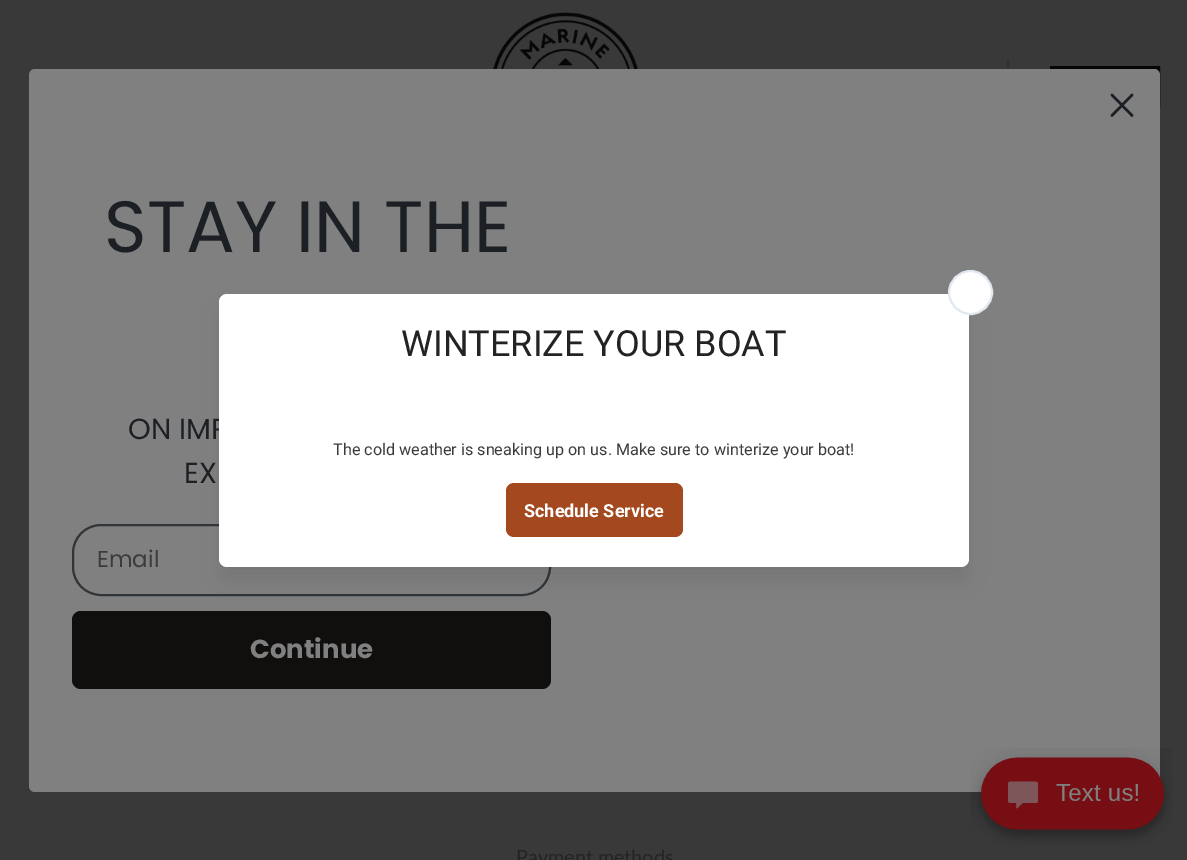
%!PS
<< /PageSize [1187 860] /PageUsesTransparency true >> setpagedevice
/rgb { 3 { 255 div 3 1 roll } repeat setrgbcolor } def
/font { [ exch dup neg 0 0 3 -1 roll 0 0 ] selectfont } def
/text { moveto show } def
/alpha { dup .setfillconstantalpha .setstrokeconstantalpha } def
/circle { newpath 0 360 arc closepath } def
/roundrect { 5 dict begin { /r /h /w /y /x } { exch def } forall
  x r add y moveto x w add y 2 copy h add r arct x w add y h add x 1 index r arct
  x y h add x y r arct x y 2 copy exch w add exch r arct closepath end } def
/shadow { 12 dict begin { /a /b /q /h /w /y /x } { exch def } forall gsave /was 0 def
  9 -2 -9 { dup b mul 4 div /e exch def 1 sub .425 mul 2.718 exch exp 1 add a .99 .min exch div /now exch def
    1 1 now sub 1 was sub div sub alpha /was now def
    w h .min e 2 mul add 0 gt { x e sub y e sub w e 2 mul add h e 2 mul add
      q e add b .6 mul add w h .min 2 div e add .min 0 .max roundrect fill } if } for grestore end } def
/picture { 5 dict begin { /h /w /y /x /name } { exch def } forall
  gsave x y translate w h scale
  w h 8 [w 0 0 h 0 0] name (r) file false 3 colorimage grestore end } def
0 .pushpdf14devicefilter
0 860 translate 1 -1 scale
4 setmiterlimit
57 57 57 rgb
0 0 1187 860 rectfill
(img_01.rgb) 490 12 151 57 picture
47 47 47 rgb
1007 59 2 10 rectfill
6 6 6 rgb
3 setlinewidth
1051.5 67.5 107 38 rectstroke
128 128 128 rgb
29 69 1131 723 6 roundrect fill
28 32 36 rgb
2.5 setlinewidth
1 setlinecap
1 setlinejoin
1112 95 moveto 20 20.5 rlineto 1112 115.5 moveto 20 -20.5 rlineto closepath stroke
48 53 57 rgb
2 setlinewidth
0 setlinecap
0 setlinejoin
73 525 477 70 28 roundrect stroke
17 15 14 rgb
72 611 479 78 9 roundrect fill
0 0 0 rgb
224 314 741 264 2 11 0.1 shadow
gsave
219 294 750 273 rectclip
224 299 741 264 2 15 0.12 shadow
grestore
(img_02.rgb) 970 748 202 98 picture
/Poppins-Regular 72.5 font
28 32 36 rgb
(STAY IN THE) 104 252 text
/Poppins-Regular 29 font
(ON IMP) 128 439 text
(EX) 184 483 text
/Poppins-Regular 23 font
59 59 59 rgb
(Email) 97 567 text
/Poppins-Bold 26 font
128 128 128 rgb
(Continue) 250 658 text
255 255 255 rgb
219 294 750 273 8 roundrect fill
970.5 292.5 21.5 circle gsave fill grestore
226 232 240 rgb
stroke
/Roboto-Regular 36 font
35 35 35 rgb
(WINTERIZE YOUR BOAT) 401 356 text
/Roboto-Regular 16.2 font
59 59 59 rgb
(The cold weather is sneaking up on us. Make sure to winterize your boat!) 333 455 text
164 73 31 rgb
506 483 177 54 8 roundrect fill
/Roboto-Bold 18 font
255 255 255 rgb
(Schedule Service) 524 517 text
/Lato-Regular 19.75 font
35 35 35 rgb
(Payment methods) 516 864 text
.poppdf14devicefilter showpage
